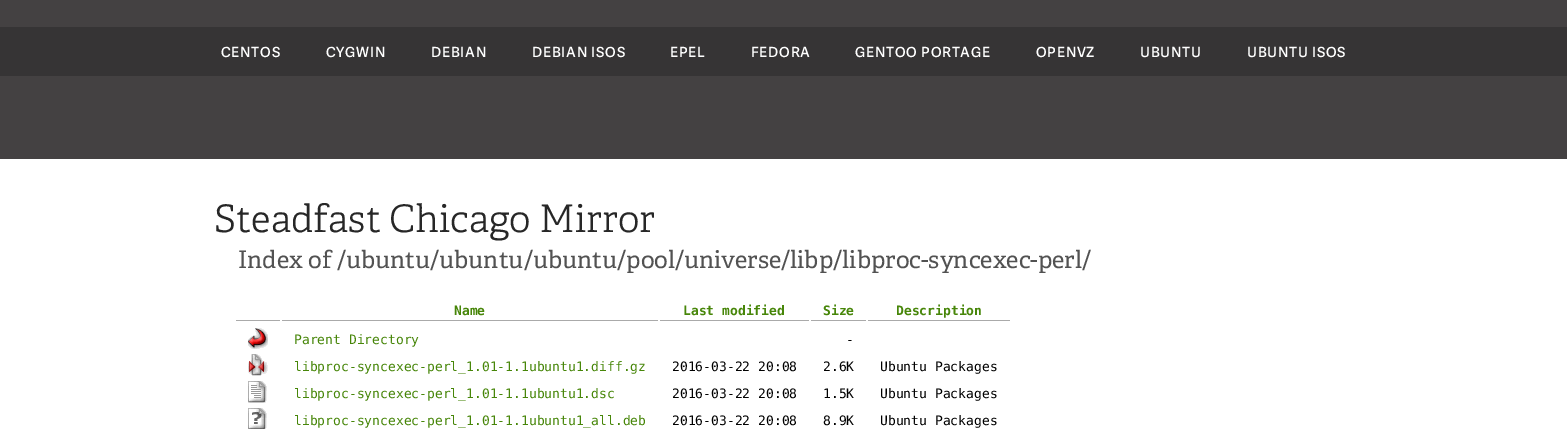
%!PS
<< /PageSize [1567 429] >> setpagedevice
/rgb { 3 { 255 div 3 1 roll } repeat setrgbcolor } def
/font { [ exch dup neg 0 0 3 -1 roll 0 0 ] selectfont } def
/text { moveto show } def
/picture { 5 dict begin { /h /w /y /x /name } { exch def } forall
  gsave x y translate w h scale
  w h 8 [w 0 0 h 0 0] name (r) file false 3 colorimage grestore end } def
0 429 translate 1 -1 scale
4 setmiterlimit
255 255 255 rgb
0 0 1567 429 rectfill
68 65 66 rgb
0 0 1567 159 rectfill
54 52 53 rgb
0 27 1567 49 rectfill
170 170 170 rgb
282 320 376 1 rectfill
660 320 149 1 rectfill
811 320 55 1 rectfill
868 320 142 1 rectfill
236 320 44 1 rectfill
(img_01.rgb) 248 328 20 21 picture
(img_02.rgb) 248 354 20 22 picture
(img_03.rgb) 248 381 19 22 picture
(img_04.rgb) 248 408 19 21 picture
/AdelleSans-SemiBold 14 font
255 255 255 rgb
221 57 moveto 0.75 0 (CENTOS) ashow
326 57 moveto 0.75 0 (CYGWIN) ashow
431 57 moveto 0.75 0 (DEBIAN) ashow
532 57 moveto 0.75 0 (DEBIAN ISOS) ashow
670 57 moveto 0.75 0 (EPEL) ashow
751 57 moveto 0.75 0 (FEDORA) ashow
855 57 moveto 0.75 0 (GENTOO PORTAGE) ashow
1036 57 moveto 0.75 0 (OPENVZ) ashow
1140 57 moveto 0.75 0 (UBUNTU) ashow
1247 57 moveto 0.75 0 (UBUNTU ISOS) ashow
/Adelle-Light 38 font
39 39 39 rgb
(Steadfast Chicago Mirror) 214 232 text
/Adelle-Regular 24 font
82 82 82 rgb
(Index of /ubuntu/ubuntu/ubuntu/pool/universe/libp/libproc-syncexec-perl/) 238 268 text
/DejaVuSansMono-Bold 13 font
71 134 9 rgb
(Name) 454 315 text
(Last modified) 683 315 text
(Size) 823 315 text
(Description) 896 315 text
/DejaVuSansMono-Regular 13 font
(Parent Directory) 294 344 text
0 0 0 rgb
(-) 846 344 text
71 134 9 rgb
(libproc-syncexec-perl_1.01-1.1ubuntu1.diff.gz) 294 371 text
0 0 0 rgb
(2016-03-22 20:08) 672 371 text
(2.6K) 823 371 text
(Ubuntu Packages) 880 371 text
71 134 9 rgb
(libproc-syncexec-perl_1.01-1.1ubuntu1.dsc) 294 398 text
0 0 0 rgb
(2016-03-22 20:08) 672 398 text
(1.5K) 823 398 text
(Ubuntu Packages) 880 398 text
71 134 9 rgb
(libproc-syncexec-perl_1.01-1.1ubuntu1_all.deb) 294 425 text
0 0 0 rgb
(2016-03-22 20:08) 672 425 text
(8.9K) 823 425 text
(Ubuntu Packages) 880 425 text
showpage
